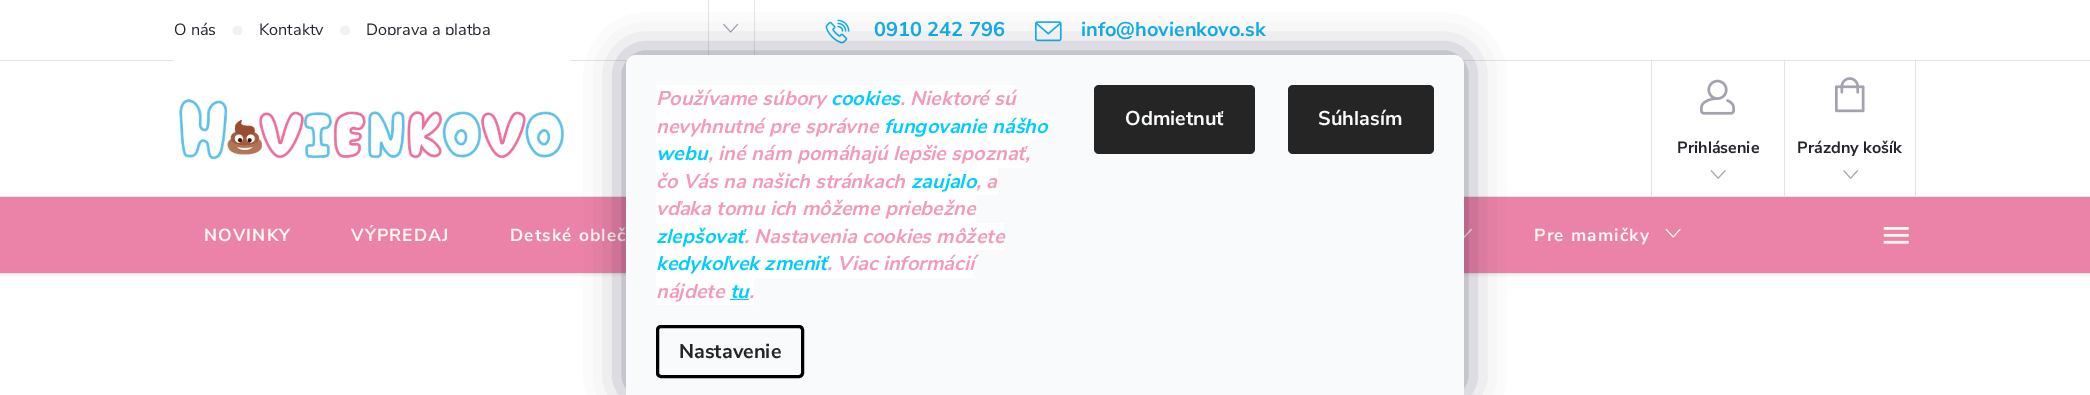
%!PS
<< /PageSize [2090 395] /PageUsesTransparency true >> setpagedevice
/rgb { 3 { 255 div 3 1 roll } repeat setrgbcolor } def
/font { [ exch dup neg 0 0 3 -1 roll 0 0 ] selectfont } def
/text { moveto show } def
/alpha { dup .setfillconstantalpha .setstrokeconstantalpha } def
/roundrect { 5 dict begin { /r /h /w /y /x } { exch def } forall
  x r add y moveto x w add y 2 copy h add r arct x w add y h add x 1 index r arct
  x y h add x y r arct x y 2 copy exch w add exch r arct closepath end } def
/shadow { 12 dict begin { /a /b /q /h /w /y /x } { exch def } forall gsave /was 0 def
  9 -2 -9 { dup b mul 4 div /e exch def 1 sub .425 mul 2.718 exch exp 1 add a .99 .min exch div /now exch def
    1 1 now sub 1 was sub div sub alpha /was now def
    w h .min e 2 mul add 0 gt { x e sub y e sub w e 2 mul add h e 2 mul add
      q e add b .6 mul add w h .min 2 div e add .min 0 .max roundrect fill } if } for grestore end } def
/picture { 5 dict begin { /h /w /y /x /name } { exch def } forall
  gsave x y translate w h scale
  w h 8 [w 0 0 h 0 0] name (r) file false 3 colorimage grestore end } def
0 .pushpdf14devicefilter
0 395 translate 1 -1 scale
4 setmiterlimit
255 255 255 rgb
0 0 2090 395 rectfill
228 228 228 rgb
0 60 2090 1 rectfill
(img_01.rgb) 232 25 11 10 picture
(img_02.rgb) 340 25 10 10 picture
754 0 1 60 rectfill
708 0 1 60 rectfill
(img_03.rgb) 723 23 15 10 picture
(img_04.rgb) 825 19 25 25 picture
(img_05.rgb) 1035 21 27 21 picture
1651 61 1 135 rectfill
(img_07.rgb) 1700 79 35 36 picture
(img_08.rgb) 1710 170 16 9 picture
1915 61 1 135 rectfill
1784 61 1 135 rectfill
(img_09.rgb) 1835 77 30 36 picture
(img_10.rgb) 1843 170 15 9 picture
0 0 0 rgb
0 199 2090 77 0 1 0.05 shadow
235 131 168 rgb
0 197 2090 76 rectfill
(img_11.rgb) 1464 228 8 10 picture
(img_12.rgb) 1665 228 16 10 picture
(img_13.rgb) 1883 227 26 17 picture
228 228 228 rgb
0 196 2090 1 rectfill
0 273 2090 1 rectfill
/NunitoSans-Regular 16.25 font
36 36 46 rgb
(O nás) 174 35 text
(Kontakty) 259 35 text
(Doprava a platba) 366 35 text
/NunitoSans-Bold 20 font
20 177 239 rgb
(0910 242 796) 874 36 text
(info@hovienkovo.sk) 1081 36 text
(img_06.rgb) 173 35 397 125 picture
/NunitoSans-Bold 16.25 font
36 36 46 rgb
(Prihlásenie) 1677 153 text
(Prázdny košík) 1797 153 text
/NunitoSans-Bold 17.5 font
255 250 240 rgb
204 241 moveto 1.1 0 (NOVINKY) ashow
351 241 moveto 1.1 0 (VÝPREDAJ) ashow
510 241 moveto 1.1 0 (Detské obleč) ashow
1534 241 moveto 1.1 0 (Pre mamičky) ashow
27 25 57 rgb
626 55 838 340 10 19 0.5 shadow
248 250 251 rgb
636 55 moveto 818 0 rlineto 5.5 0 10 4.5 10 10 rcurveto 0 330 rlineto -838 0 rlineto 0 -330 rlineto 0 -5.5 4.5 -10 10 -10 rcurveto closepath fill
255 255 255 rgb
656 85 359 28 rectfill
/NunitoSans-BoldItalic 20 font
243 154 182 rgb
(Používame súbory) 656 105 text
0 204 255 rgb
(cookies) 831 105 text
243 154 182 rgb
(. Niektoré sú) 900 105 text
255 255 255 rgb
656 113 392 27 rectfill
243 154 182 rgb
(nevyhnutné pre správne) 656 133 text
0 204 255 rgb
(fungovanie nášho) 884 133 text
255 255 255 rgb
656 140 373 28 rectfill
0 204 255 rgb
(webu) 656 160 text
243 154 182 rgb
(, iné nám pomáhajú lepšie spoznať,) 708 160 text
255 255 255 rgb
656 168 342 27 rectfill
243 154 182 rgb
(čo Vás na našich stránkach) 656 188 text
0 204 255 rgb
(zaujalo) 911 188 text
243 154 182 rgb
(, a) 976 188 text
255 255 255 rgb
656 195 320 28 rectfill
243 154 182 rgb
(vďaka tomu ich môžeme priebežne) 656 215 text
255 255 255 rgb
656 223 348 27 rectfill
0 204 255 rgb
(zlepšovať) 656 243 text
243 154 182 rgb
(. Nastavenia cookies môžete) 744 243 text
255 255 255 rgb
656 250 318 28 rectfill
0 204 255 rgb
(kedykoľvek zmeniť) 656 270 text
243 154 182 rgb
(. Viac informácií) 827 270 text
255 255 255 rgb
656 278 98 27 rectfill
243 154 182 rgb
(nájdete) 656 298 text
0 204 255 rgb
(tu) 730 298 text
243 154 182 rgb
(.) 749 298 text
0 204 255 rgb
730 299 19 1 rectfill
0 0 0 rgb
3 setlinewidth
657.5 326.5 145 50 3.5 roundrect stroke
/NunitoSans-Bold 20 font
37 37 37 rgb
(Nastavenie) 679 358 text
1094 85 161 69 5 roundrect fill
248 250 251 rgb
(Odmietnuť) 1125 125 text
37 37 37 rgb
1288 85 146 69 5 roundrect fill
248 250 251 rgb
(Súhlasím) 1318 125 text
.poppdf14devicefilter showpage
